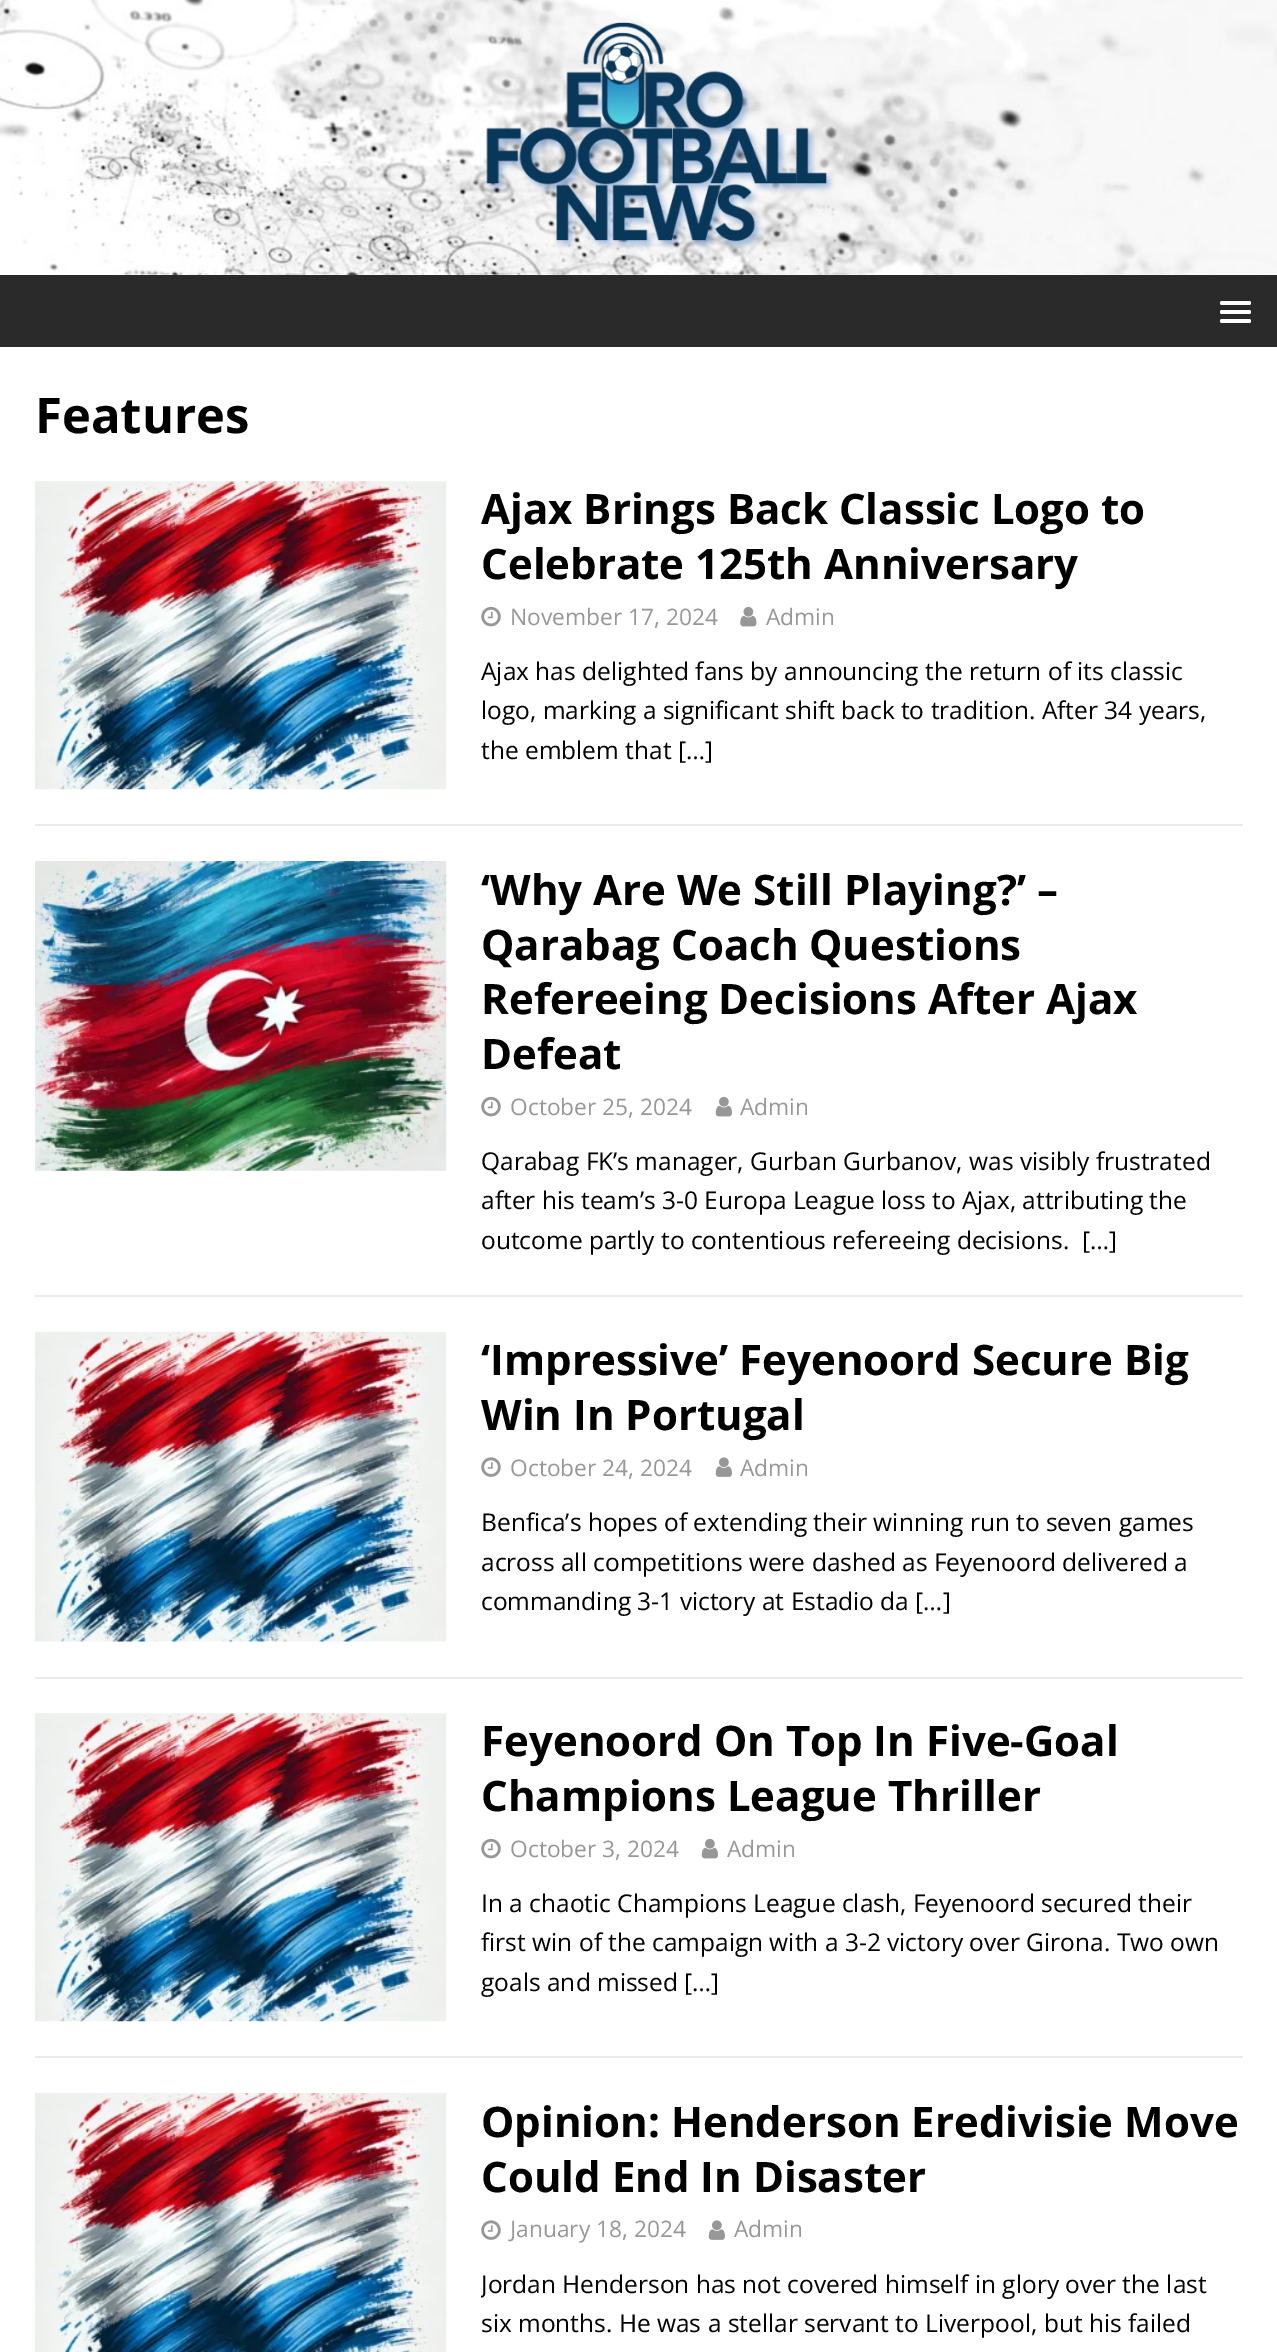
%!PS
<< /PageSize [1277 2352] >> setpagedevice
/rgb { 3 { 255 div 3 1 roll } repeat setrgbcolor } def
/font { [ exch dup neg 0 0 3 -1 roll 0 0 ] selectfont } def
/text { moveto show } def
/roundrect { 5 dict begin { /r /h /w /y /x } { exch def } forall
  x r add y moveto x w add y 2 copy h add r arct x w add y h add x 1 index r arct
  x y h add x y r arct x y 2 copy exch w add exch r arct closepath end } def
/picture { 5 dict begin { /h /w /y /x /name } { exch def } forall
  gsave x y translate w h scale
  w h 8 [w 0 0 h 0 0] name (r) file false 3 colorimage grestore end } def
0 2352 translate 1 -1 scale
4 setmiterlimit
255 255 255 rgb
0 0 1277 2352 rectfill
(img_01.rgb) 0 274 1277 1 picture
(img_02.rgb) 0 0 1277 275 picture
42 42 42 rgb
0 275 1277 72 rectfill
255 255 255 rgb
1220 301 31 4 2 roundrect fill
1220 310 31 4 2 roundrect fill
1220 319 31 4 2 roundrect fill
235 235 235 rgb
35 824 1208 2 rectfill
(img_03.rgb) 35 481 412 309 picture
(img_04.rgb) 481 606 20 21 picture
(img_05.rgb) 740 606 17 21 picture
35 1295 1208 2 rectfill
(img_06.rgb) 35 861 412 310 picture
(img_04.rgb) 481 1096 20 21 picture
(img_07.rgb) 715 1096 17 21 picture
35 1677 1208 2 rectfill
(img_08.rgb) 35 1331 412 311 picture
(img_09.rgb) 481 1457 20 20 picture
(img_10.rgb) 715 1457 17 20 picture
35 2056 1208 2 rectfill
(img_03.rgb) 35 1713 412 309 picture
(img_04.rgb) 481 1838 20 21 picture
(img_07.rgb) 701 1838 17 21 picture
(img_11.rgb) 35 2093 412 259 picture
(img_09.rgb) 481 2220 20 20 picture
(img_10.rgb) 708 2220 17 20 picture
/OpenSans-Bold 49 font
0 0 0 rgb
(Features) 35 433 text
/OpenSans-Bold 42 font
(Ajax Brings Back Classic Logo to) 481 524 text
(Celebrate 125th Anniversary) 481 579 text
/OpenSans-Regular 22.75 font
151 151 151 rgb
(November 17, 2024) 510 625 text
(Admin) 766 625 text
/OpenSans-Regular 24.5 font
0 0 0 rgb
(Ajax has delighted fans by announcing the return of its classic) 481 680 text
(logo, marking a significant shift back to tradition. After 34 years,) 481 719 text
(the emblem that […]) 481 759 text
/OpenSans-Bold 42 font
(‘Why Are We Still Playing?’ –) 481 905 text
(Qarabag Coach Questions) 481 960 text
(Refereeing Decisions After Ajax) 481 1014 text
(Defeat) 481 1069 text
/OpenSans-Regular 22.75 font
151 151 151 rgb
(October 25, 2024) 510 1115 text
(Admin) 740 1115 text
/OpenSans-Regular 24.5 font
0 0 0 rgb
(Qarabag FK’s manager, Gurban Gurbanov, was visibly frustrated) 481 1170 text
(after his team’s 3-0 Europa League loss to Ajax, attributing the) 481 1209 text
(outcome partly to contentious refereeing decisions.) 481 1249 text
([…]) 1082 1249 text
/OpenSans-Bold 42 font
(‘Impressive’ Feyenoord Secure Big) 481 1375 text
(Win In Portugal) 481 1430 text
/OpenSans-Regular 22.75 font
151 151 151 rgb
(October 24, 2024) 510 1476 text
(Admin) 740 1476 text
/OpenSans-Regular 24.5 font
0 0 0 rgb
(Benfica’s hopes of extending their winning run to seven games) 481 1531 text
(across all competitions were dashed as Feyenoord delivered a) 481 1571 text
(commanding 3-1 victory at Estadio da […]) 481 1610 text
/OpenSans-Bold 42 font
(Feyenoord On Top In Five-Goal) 481 1756 text
(Champions League Thriller) 481 1811 text
/OpenSans-Regular 22.75 font
151 151 151 rgb
(October 3, 2024) 510 1857 text
(Admin) 727 1857 text
/OpenSans-Regular 24.5 font
0 0 0 rgb
(In a chaotic Champions League clash, Feyenoord secured their) 481 1912 text
(first win of the campaign with a 3-2 victory over Girona. Two own) 481 1951 text
(goals and missed […]) 481 1991 text
/OpenSans-Bold 42 font
(Opinion: Henderson Eredivisie Move) 481 2137 text
(Could End In Disaster) 481 2192 text
/OpenSans-Regular 22.75 font
151 151 151 rgb
(January 18, 2024) 510 2237 text
(Admin) 734 2237 text
gsave
481 2265 762 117 rectclip
/OpenSans-Regular 24.5 font
0 0 0 rgb
(Jordan Henderson has not covered himself in glory over the last) 481 2293 text
grestore
/OpenSans-Regular 24.5 font
0 0 0 rgb
(six months. He was a stellar servant to Liverpool, but his failed) 481 2332 text
showpage
